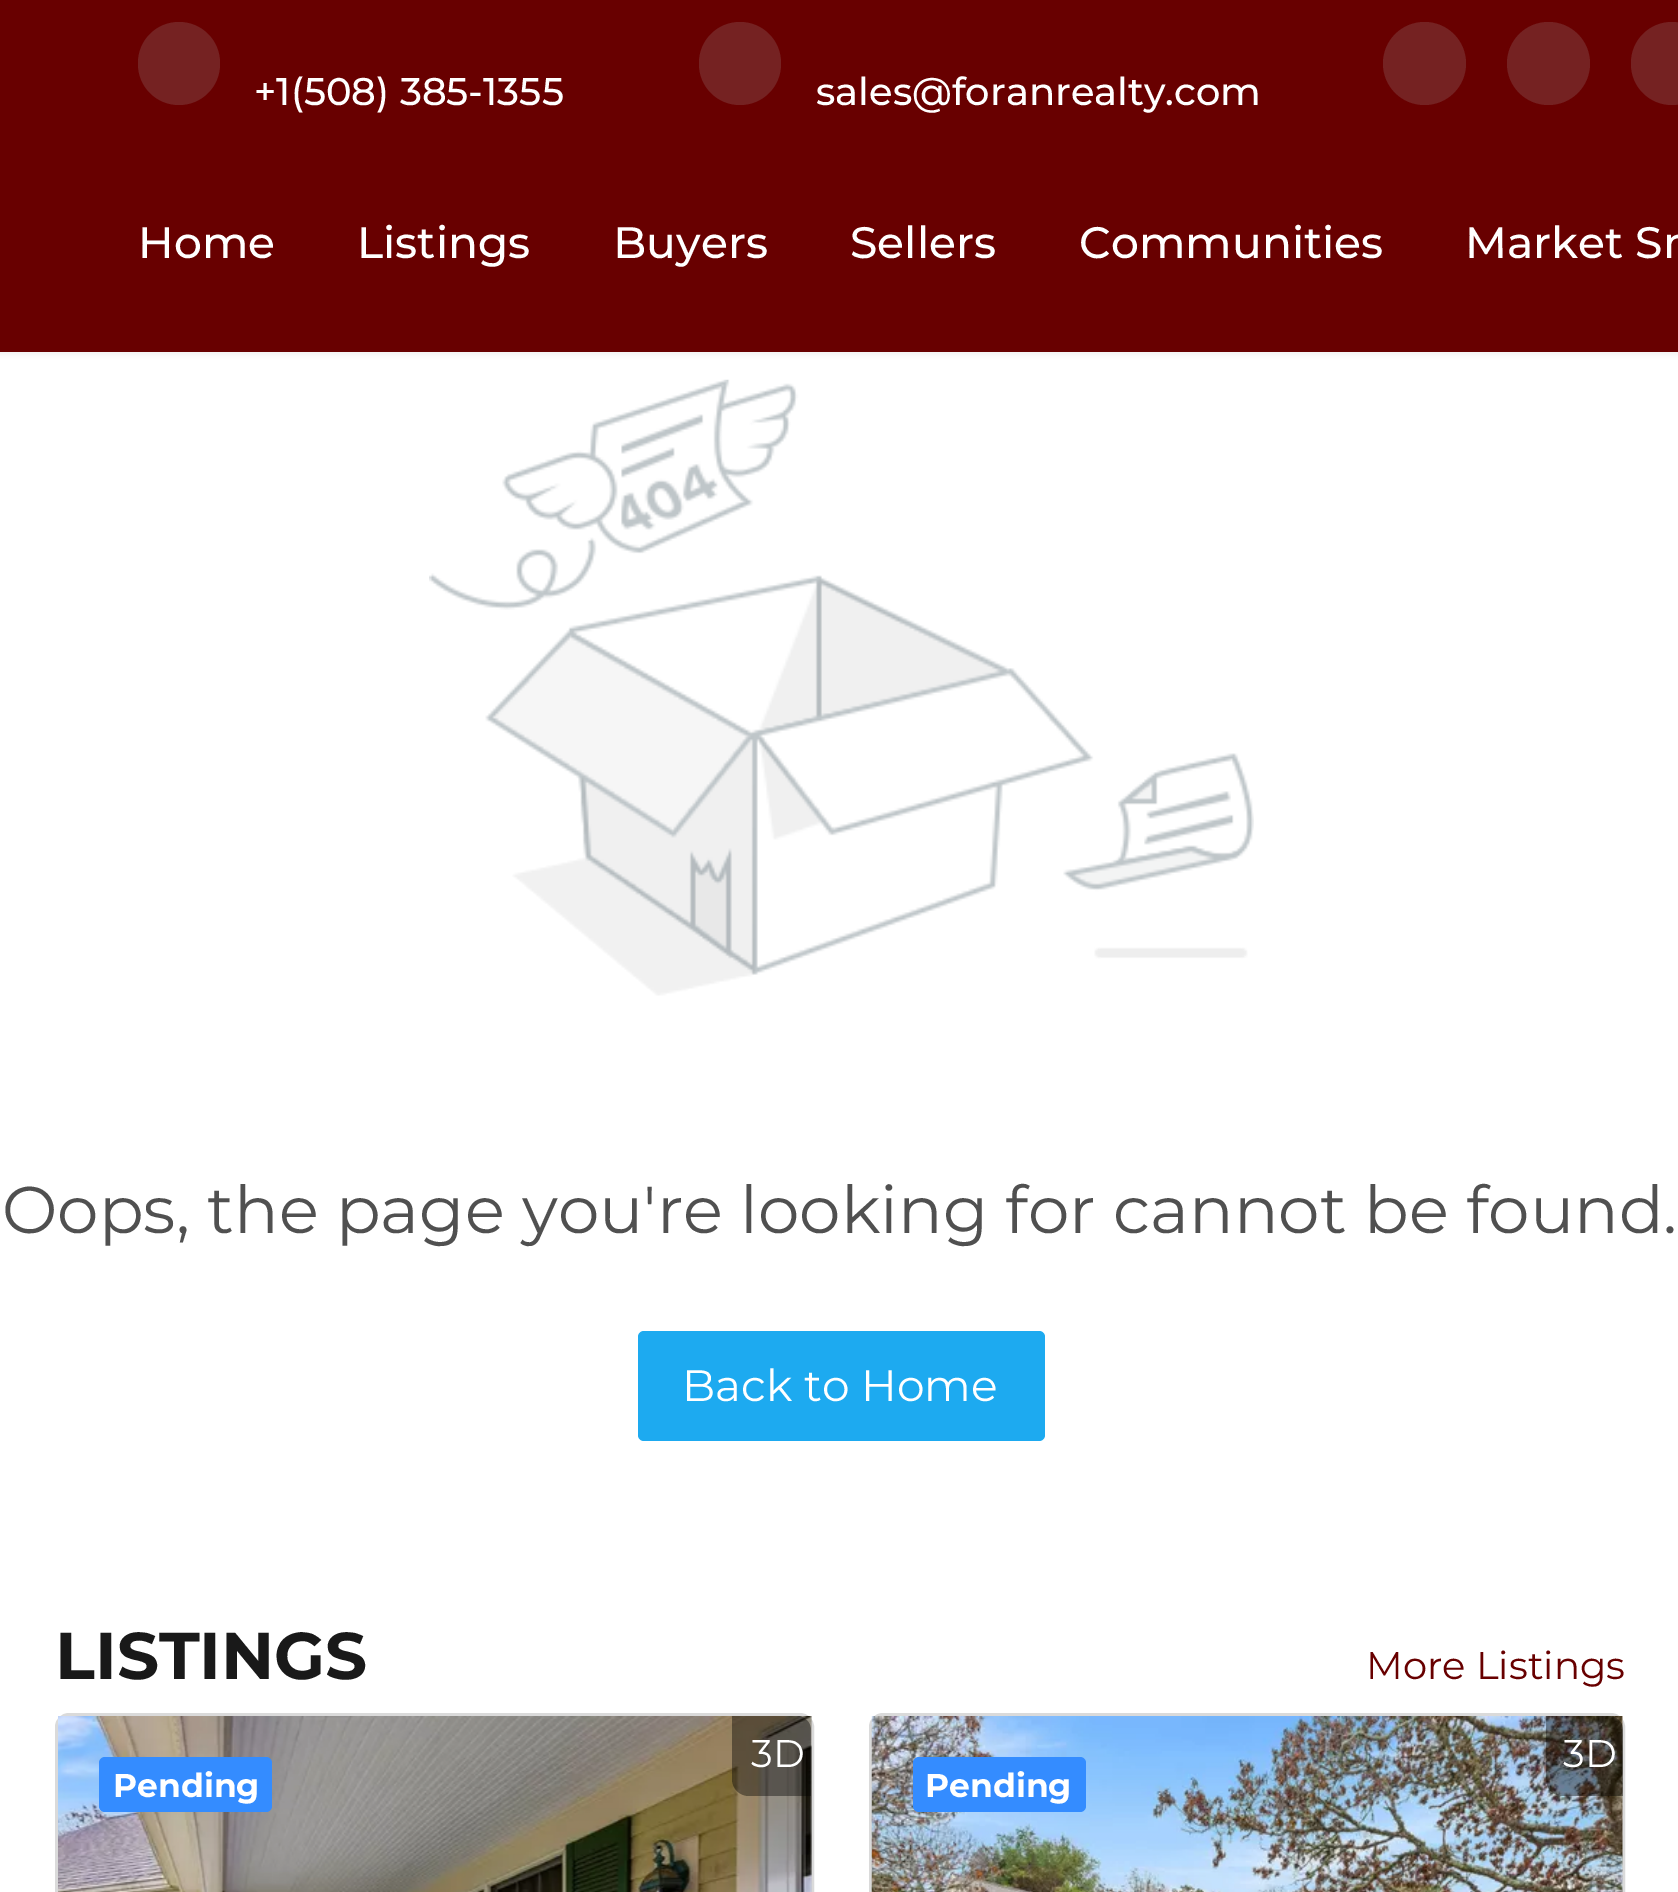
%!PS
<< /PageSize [1678 1892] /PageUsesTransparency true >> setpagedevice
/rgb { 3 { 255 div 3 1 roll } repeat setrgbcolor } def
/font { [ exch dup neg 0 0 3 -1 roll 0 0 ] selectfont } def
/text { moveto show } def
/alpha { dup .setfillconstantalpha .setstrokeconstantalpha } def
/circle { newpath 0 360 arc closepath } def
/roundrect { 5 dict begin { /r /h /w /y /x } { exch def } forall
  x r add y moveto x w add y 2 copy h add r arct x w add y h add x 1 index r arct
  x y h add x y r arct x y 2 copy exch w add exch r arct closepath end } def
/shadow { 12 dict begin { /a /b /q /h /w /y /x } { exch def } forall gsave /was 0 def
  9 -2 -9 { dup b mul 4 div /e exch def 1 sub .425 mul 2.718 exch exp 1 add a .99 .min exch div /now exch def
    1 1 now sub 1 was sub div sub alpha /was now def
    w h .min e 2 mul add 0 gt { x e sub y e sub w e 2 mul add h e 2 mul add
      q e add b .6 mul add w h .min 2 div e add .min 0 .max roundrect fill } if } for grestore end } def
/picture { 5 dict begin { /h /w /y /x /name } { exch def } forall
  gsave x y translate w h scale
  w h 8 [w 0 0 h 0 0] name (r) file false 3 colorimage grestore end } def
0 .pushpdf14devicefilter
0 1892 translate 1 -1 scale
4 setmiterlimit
255 255 255 rgb
0 0 1678 1892 rectfill
0 0 0 rgb
-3 -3 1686 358 0 3 0.05 shadow
104 0 0 rgb
0 0 1678 352 rectfill
117 34 34 rgb
138 22 82 83 41 roundrect fill
699 22 82 83 41 roundrect fill
1424.5 63.5 41.5 circle fill
1548.5 63.5 41.5 circle fill
1631 22 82 83 41 roundrect fill
(img_01.rgb) 429 379 825 617 picture
29 170 240 rgb
638 1331 407 110 6 roundrect fill
218 218 218 rgb
3 setlinewidth
56.5 1714.5 756 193 12.5 roundrect stroke
(img_02.rgb) 58 1716 754 176 picture
0.4 alpha
0 0 0 rgb
732 1716 moveto 65 0 rlineto 7.5 0 14 6.5 14 14 rcurveto 0 66 rlineto -62 0 rlineto -9.5 0 -17 -7.5 -17 -17 rcurveto closepath fill
1 alpha
52 140 255 rgb
99 1757 173 55 6 roundrect fill
218 218 218 rgb
870.5 1714.5 753 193 12.5 roundrect stroke
(img_03.rgb) 871 1716 752 176 picture
0.4 alpha
0 0 0 rgb
1546 1716 moveto 63 0 rlineto 7.5 0 14 6.5 14 14 rcurveto 0 66 rlineto -60 0 rlineto -9.5 0 -17 -7.5 -17 -17 rcurveto closepath fill
1 alpha
52 140 255 rgb
913 1757 173 55 6 roundrect fill
/Montserrat-Medium 38.5 font
255 255 255 rgb
(+1\(508\) 385-1355) 254 105 text
(sales@foranrealty.com) 816 105 text
/Montserrat-Medium 44 font
(Home) 138 258 text
(Listings) 357 258 text
(Buyers) 613 258 text
(Sellers) 850 258 text
(Communities) 1079 258 text
(Market Sn) 1465 258 text
/Montserrat-Regular 66 font
80 80 80 rgb
(Oops, the page you're looking for cannot be found.) 2 1233 text
/Montserrat-Regular 44 font
255 255 255 rgb
(Back to Home) 682 1401 text
/Montserrat-Bold 66 font
25 25 25 rgb
(LISTINGS) 55 1679 text
/Montserrat-Regular 38.5 font
104 0 0 rgb
(More Listings) 1366 1679 text
255 255 255 rgb
(3D) 751 1767 text
/Montserrat-Bold 33 font
(Pending) 113 1797 text
/Montserrat-Regular 38.5 font
(3D) 1563 1767 text
/Montserrat-Bold 33 font
(Pending) 925 1797 text
.poppdf14devicefilter showpage
